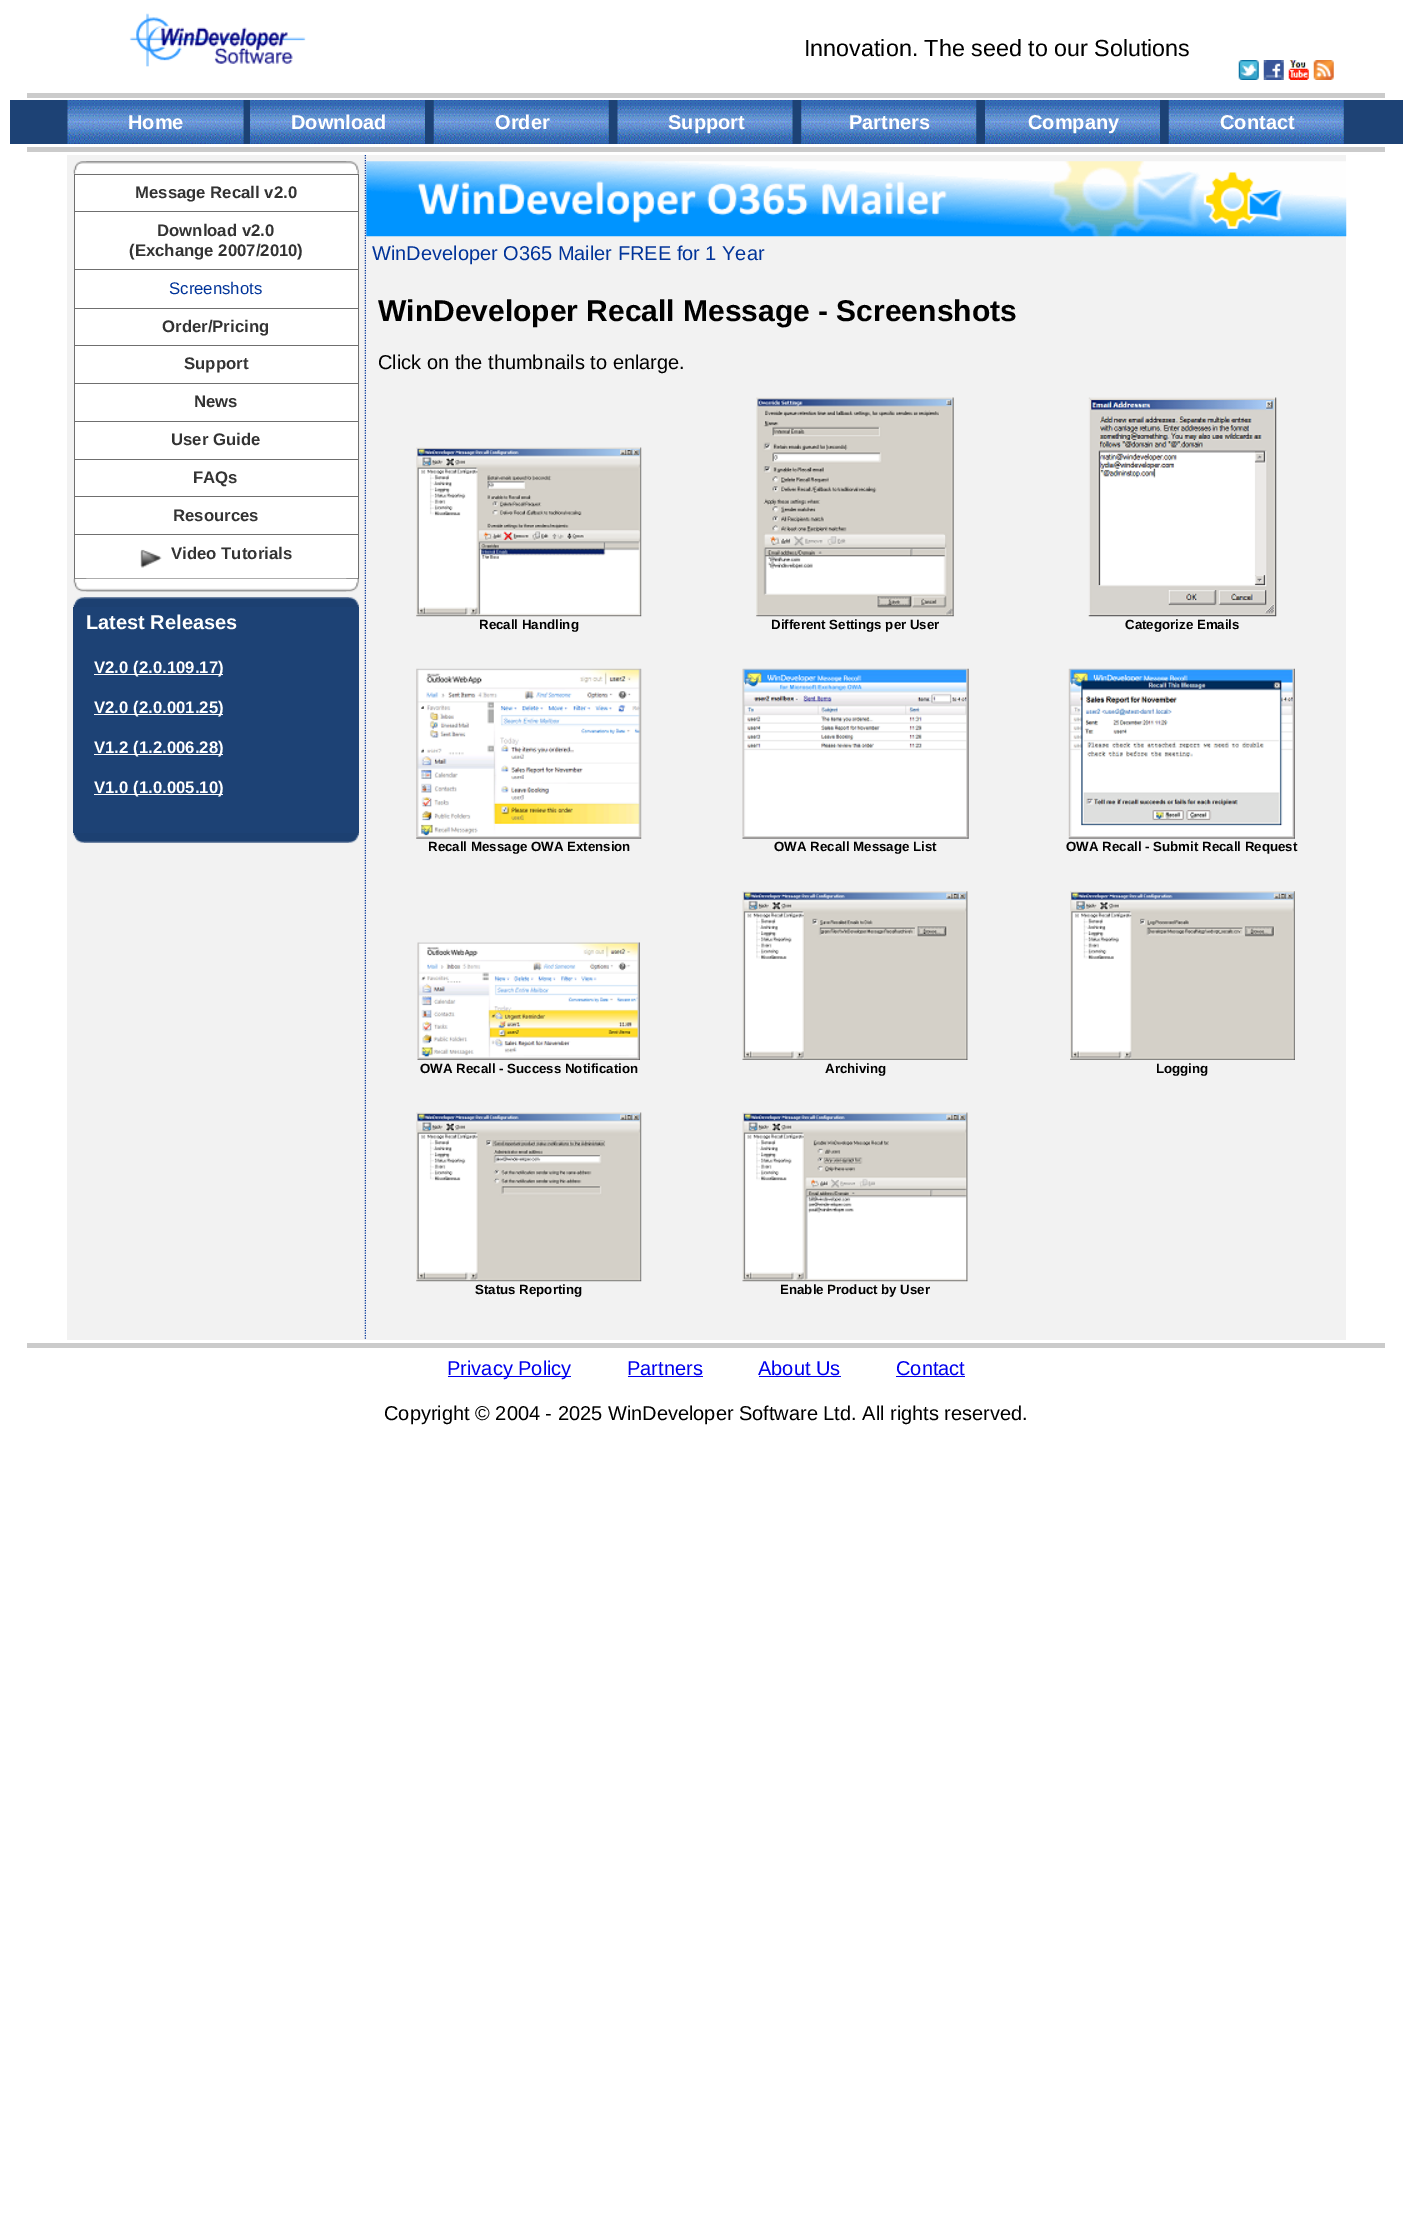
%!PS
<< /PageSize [1412 2225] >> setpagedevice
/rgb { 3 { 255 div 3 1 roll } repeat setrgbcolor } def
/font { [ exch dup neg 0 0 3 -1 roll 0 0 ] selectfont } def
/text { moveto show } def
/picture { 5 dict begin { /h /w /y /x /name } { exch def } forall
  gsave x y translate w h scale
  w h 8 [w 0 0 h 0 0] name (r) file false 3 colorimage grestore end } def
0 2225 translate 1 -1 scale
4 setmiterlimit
255 255 255 rgb
0 0 1412 2225 rectfill
(img_01.rgb) 129 13 177 54 picture
(img_02.rgb) 1238 60 21 20 picture
(img_03.rgb) 1263 60 21 20 picture
(img_04.rgb) 1288 60 21 20 picture
(img_05.rgb) 1313 60 21 20 picture
203 203 203 rgb
27 93 1358 5 rectfill
29 66 117 rgb
10 100 1393 44 rectfill
(img_06.rgb) 67 100 177 44 picture
(img_07.rgb) 243 100 1 44 picture
(img_08.rgb) 250 100 175 44 picture
(img_09.rgb) 433 100 176 44 picture
(img_10.rgb) 617 100 176 44 picture
(img_11.rgb) 801 100 176 44 picture
(img_12.rgb) 985 100 175 44 picture
(img_13.rgb) 1168 100 176 44 picture
203 203 203 rgb
27 147 1358 5 rectfill
242 242 242 rgb
67 155 299 1185 rectfill
0 51 153 rgb
1.2 setlinewidth
[1.25 1.25] 0 setdash
365.5 155 moveto 0 1185 rlineto stroke
(img_14.rgb) 73 161 274 13 picture
(img_15.rgb) 86 161 273 13 picture
255 255 255 rgb
75 175 283 403 rectfill
111 111 111 rgb
358 174 1 405 rectfill
74 174 1 405 rectfill
75 174 283 1 rectfill
75 211 283 1 rectfill
75 269 283 1 rectfill
75 308 283 1 rectfill
75 345 283 1 rectfill
75 383 283 1 rectfill
75 421 283 1 rectfill
75 459 283 1 rectfill
75 496 283 1 rectfill
75 534 283 1 rectfill
75 578 283 1 rectfill
(img_16.rgb) 140 549 22 19 picture
(img_17.rgb) 73 578 274 14 picture
(img_18.rgb) 86 578 273 14 picture
(img_19.rgb) 73 597 276 10 picture
(img_20.rgb) 83 597 276 10 picture
29 66 117 rgb
73 607 286 226 rectfill
255 255 255 rgb
94 674 129 1 rectfill
94 714 129 1 rectfill
94 754 129 1 rectfill
94 794 129 1 rectfill
(img_21.rgb) 73 833 276 10 picture
(img_22.rgb) 83 833 276 10 picture
242 242 242 rgb
366 155 980 1185 rectfill
(img_23.rgb) 366 161 981 76 picture
(img_24.rgb) 416 447 226 170 picture
(img_25.rgb) 756 397 198 220 picture
(img_26.rgb) 1088 397 189 220 picture
(img_27.rgb) 416 668 226 171 picture
(img_28.rgb) 742 668 227 171 picture
(img_29.rgb) 1068 668 227 171 picture
(img_30.rgb) 417 942 223 118 picture
(img_31.rgb) 742 891 226 169 picture
(img_32.rgb) 1070 891 225 169 picture
(img_33.rgb) 416 1112 226 170 picture
(img_34.rgb) 742 1112 226 170 picture
203 203 203 rgb
27 1343 1358 5 rectfill
0 0 238 rgb
448 1376 123 1 rectfill
628 1376 75 1 rectfill
759 1376 82 1 rectfill
896 1376 69 1 rectfill
/LiberationSans-Regular 23.3 font
0 0 0 rgb
(Innovation. The seed to our Solutions) 804 56 text
/LiberationSans-Bold 20 font
255 255 255 rgb
(Home) 128 129 text
(Download) 291 129 text
(Order) 495 129 text
(Support) 668 129 text
(Partners) 849 129 text
(Company) 1028 129 text
(Contact) 1220 129 text
/LiberationSans-Bold 16.75 font
51 51 51 rgb
(Message Recall v2.0) 135 198 text
(Download v2.0) 157 236 text
(\(Exchange 2007/2010\)) 129 256 text
/LiberationSans-Regular 16.75 font
0 51 153 rgb
(Screenshots) 169 294 text
/LiberationSans-Bold 16.75 font
51 51 51 rgb
(Order/Pricing) 162 332 text
(Support) 184 369 text
(News) 194 407 text
(User Guide) 171 445 text
(FAQs) 193 483 text
(Resources) 173 521 text
(Video Tutorials) 171 559 text
/LiberationSans-Bold 20 font
255 255 255 rgb
(Latest Releases) 86 629 text
/LiberationSans-Bold 16.75 font
(V2.0 \(2.0.109.17\)) 94 673 text
(V2.0 \(2.0.001.25\)) 94 713 text
(V1.2 \(1.2.006.28\)) 94 753 text
(V1.0 \(1.0.005.10\)) 94 793 text
/LiberationSans-Regular 20 font
0 51 153 rgb
(WinDeveloper O365 Mailer FREE for 1 Year) 372 260 text
/LiberationSans-Bold 30 font
0 0 0 rgb
(WinDeveloper Recall Message - Screenshots) 378 321 text
/LiberationSans-Regular 20 font
(Click on the thumbnails to enlarge.) 378 369 text
/LiberationSans-Bold 13.3 font
(Recall Handling) 479 629 text
(Different Settings per User) 771 629 text
(Categorize Emails) 1125 629 text
(Recall Message OWA Extension) 428 851 text
(OWA Recall Message List) 774 851 text
(OWA Recall - Submit Recall Request) 1066 851 text
(OWA Recall - Success Notification) 420 1073 text
(Archiving) 825 1073 text
(Logging) 1156 1073 text
(Status Reporting) 475 1294 text
(Enable Product by User) 780 1294 text
/LiberationSans-Regular 20 font
0 0 238 rgb
(Privacy Policy) 447 1375 text
(Partners) 627 1375 text
(About Us) 758 1375 text
(Contact) 896 1375 text
0 0 0 rgb
(Copyright © 2004 - 2025 WinDeveloper Software Ltd. All rights reserved.) 384 1420 text
showpage
